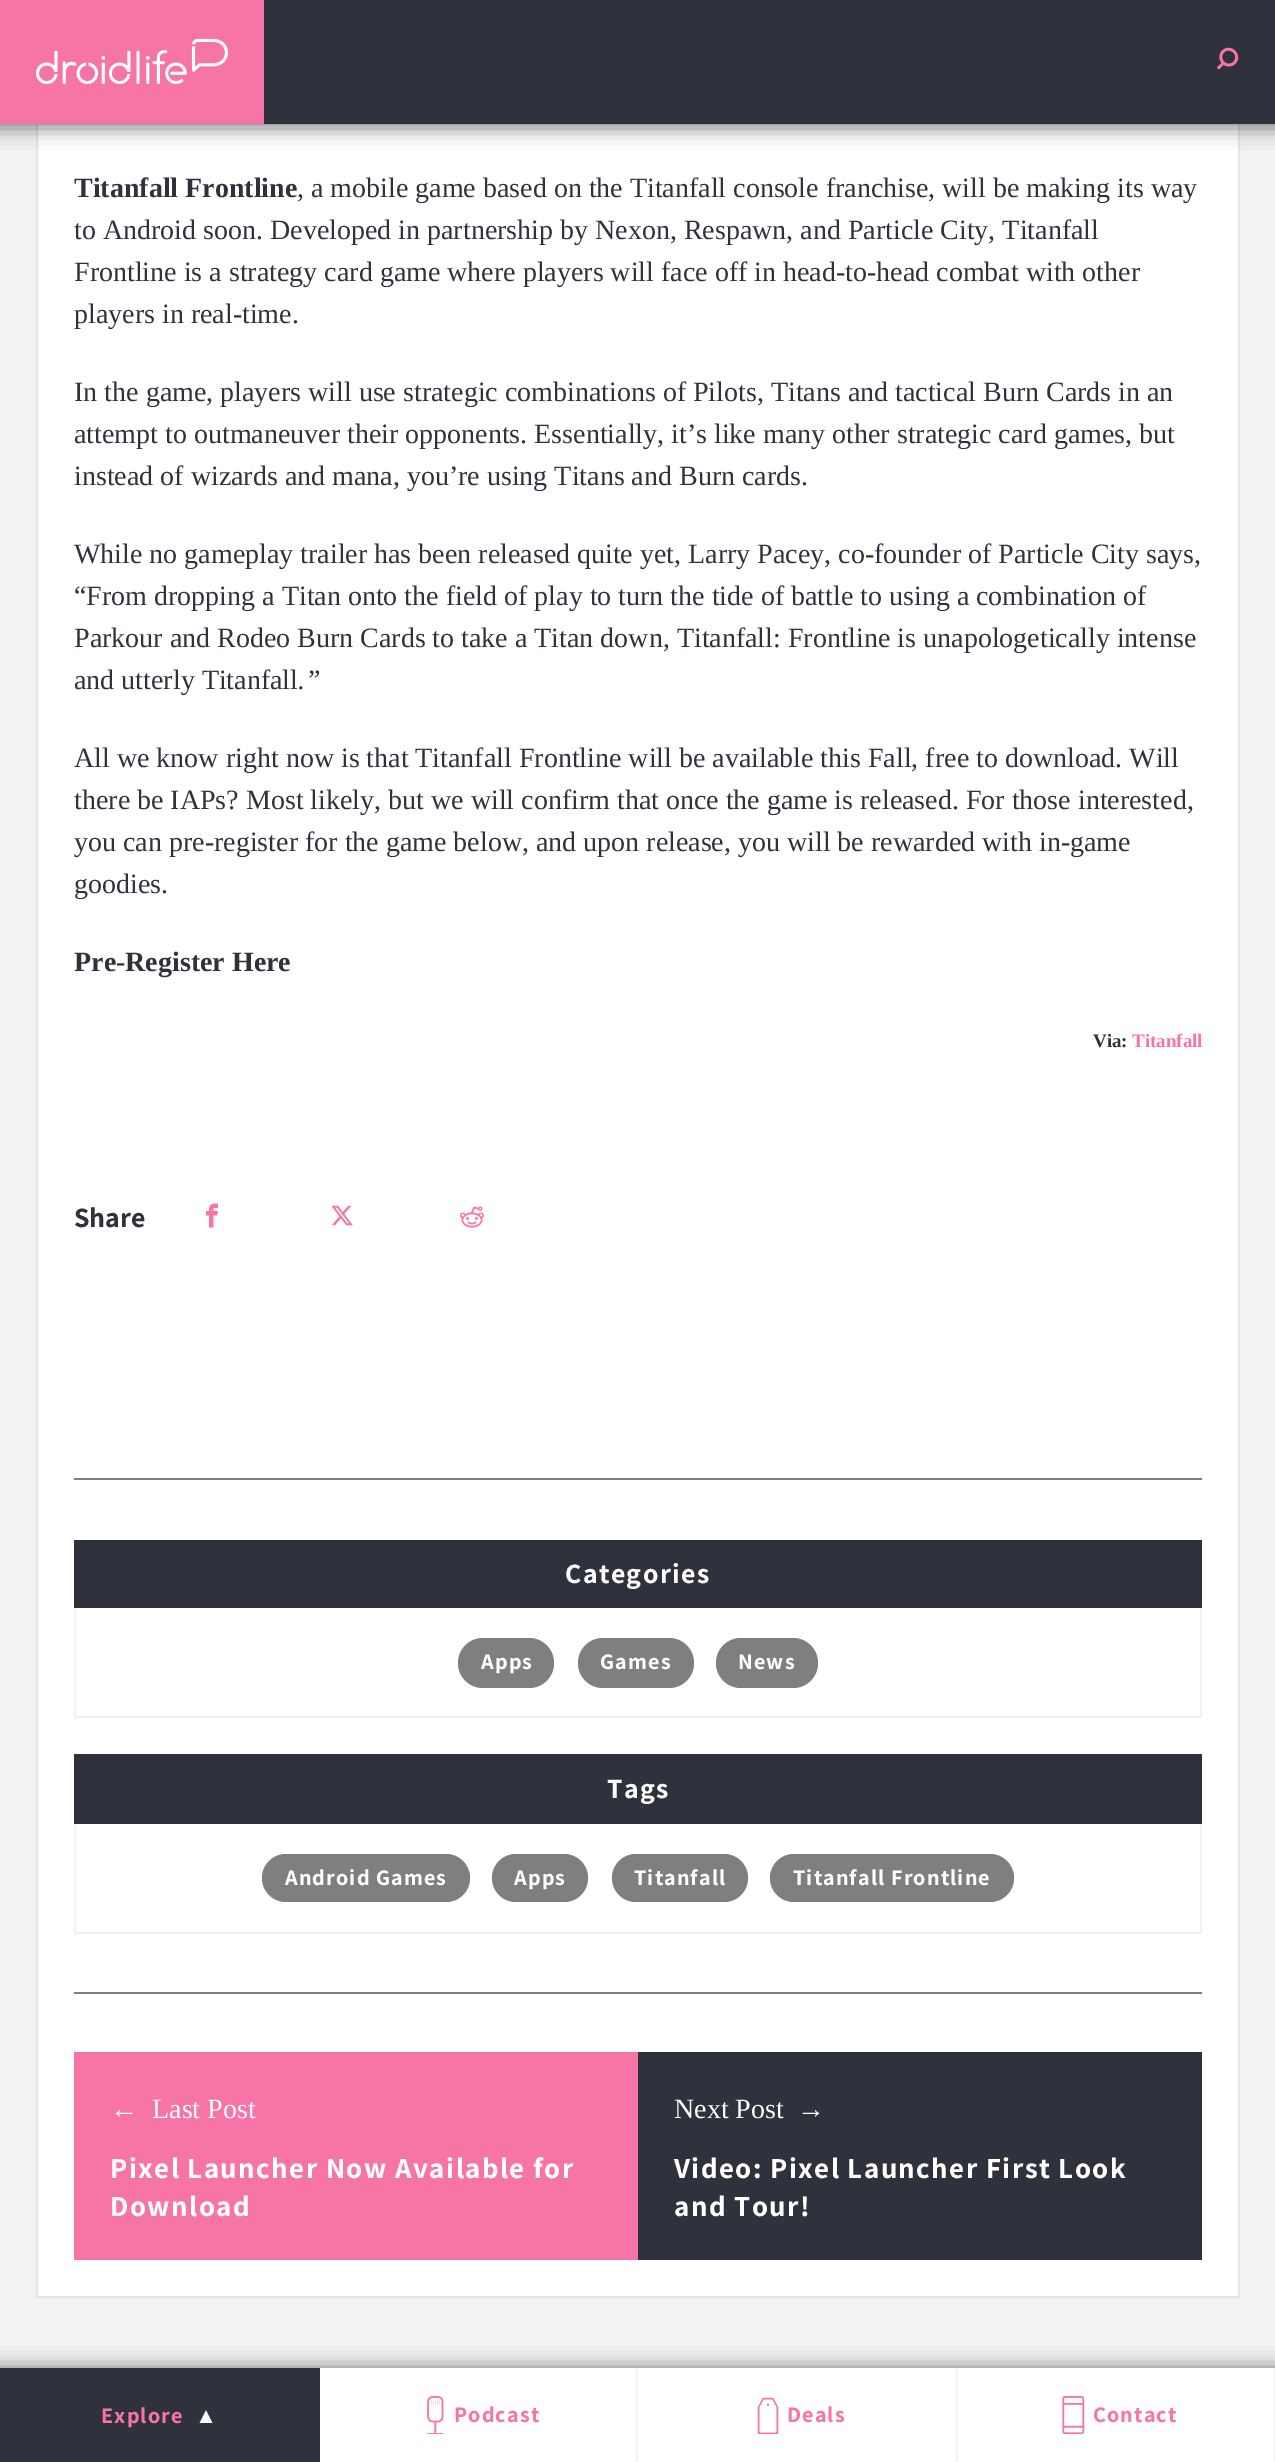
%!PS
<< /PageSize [1275 2462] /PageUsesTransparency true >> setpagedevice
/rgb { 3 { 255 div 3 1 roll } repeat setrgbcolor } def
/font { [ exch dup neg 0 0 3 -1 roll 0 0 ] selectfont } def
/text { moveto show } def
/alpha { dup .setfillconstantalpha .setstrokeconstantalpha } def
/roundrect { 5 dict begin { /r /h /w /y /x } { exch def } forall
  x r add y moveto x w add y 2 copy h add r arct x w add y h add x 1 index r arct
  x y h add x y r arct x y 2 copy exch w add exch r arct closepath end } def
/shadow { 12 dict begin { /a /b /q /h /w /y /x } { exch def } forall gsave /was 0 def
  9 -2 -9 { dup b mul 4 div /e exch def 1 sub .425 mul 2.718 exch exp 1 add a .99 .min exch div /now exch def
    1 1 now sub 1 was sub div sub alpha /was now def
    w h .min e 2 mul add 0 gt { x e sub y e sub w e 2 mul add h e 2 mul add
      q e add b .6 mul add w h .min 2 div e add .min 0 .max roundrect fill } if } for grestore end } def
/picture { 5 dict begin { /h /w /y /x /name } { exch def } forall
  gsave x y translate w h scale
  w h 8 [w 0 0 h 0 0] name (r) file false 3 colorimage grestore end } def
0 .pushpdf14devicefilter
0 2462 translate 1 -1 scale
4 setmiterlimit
242 242 243 rgb
0 0 1275 2462 rectfill
255 255 255 rgb
38 124 1200 2172 rectfill
229 229 230 rgb
2 setlinewidth
37 -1 1202 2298 rectstroke
126 127 129 rgb
74 1478 1128 2 rectfill
(img_01.rgb) 206 1203 12 25 picture
(img_02.rgb) 331 1205 22 21 picture
(img_03.rgb) 460 1206 24 22 picture
74 1992 1128 2 rectfill
47 49 60 rgb
74 1540 1128 68 rectfill
242 242 243 rgb
1200 1608 2 110 rectfill
74 1716 1128 2 rectfill
74 1608 2 110 rectfill
126 127 129 rgb
458 1638 96 50 25 roundrect fill
578 1638 116 50 25 roundrect fill
716 1638 102 50 25 roundrect fill
47 49 60 rgb
74 1754 1128 70 rectfill
242 242 243 rgb
1200 1824 2 110 rectfill
74 1932 1128 2 rectfill
74 1824 2 110 rectfill
126 127 129 rgb
262 1854 208 48 24 roundrect fill
492 1854 96 48 24 roundrect fill
612 1854 136 48 24 roundrect fill
770 1854 244 48 24 roundrect fill
246 116 166 rgb
74 2052 564 208 rectfill
47 49 60 rgb
638 2052 564 208 rectfill
0 0 0 rgb
-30 -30 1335 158 0 10 0.5 shadow
246 116 166 rgb
0 0 264 124 rectfill
(img_04.rgb) 36 38 192 46 picture
47 49 60 rgb
264 0 1011 124 rectfill
(img_05.rgb) 1216 47 23 23 picture
0 0 0 rgb
-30 2368 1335 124 0 10 0.5 shadow
255 255 255 rgb
320 2368 954 94 rectfill
47 49 60 rgb
0 2368 320 94 rectfill
242 242 243 rgb
636 2368 2 94 rectfill
(img_06.rgb) 427 2396 17 38 picture
956 2368 2 94 rectfill
(img_07.rgb) 757 2397 22 37 picture
1274 2368 1 94 rectfill
(img_08.rgb) 1062 2396 23 38 picture
/LiberationSerif-Bold 28 font
47 49 60 rgb
(Titanfall Frontline) 74 197 text
/LiberationSerif-Regular 28 font
(, a mobile game based on the Titanfall console franchise, will be making its way) 297 197 text
(to Android soon. Developed in partnership by Nexon, Respawn, and Particle City, Titanfall) 74 239 text
(Frontline is a strategy card game where players will face off in head-to-head combat with other) 74 281 text
(players in real-time.) 74 323 text
(In the game, players will use strategic combinations of Pilots, Titans and tactical Burn Cards in an) 74 401 text
(attempt to outmaneuver their opponents. Essentially, it’s like many other strategic card games, but) 74 443 text
(instead of wizards and mana, you’re using Titans and Burn cards.) 74 485 text
(While no gameplay trailer has been released quite yet, Larry Pacey, co-founder of Particle City says,) 74 563 text
(“From dropping a Titan onto the field of play to turn the tide of battle to using a combination of) 74 605 text
(Parkour and Rodeo Burn Cards to take a Titan down, Titanfall: Frontline is unapologetically intense) 74 647 text
(and utterly Titanfall) 74 689 text
/LiberationSerif-Italic 28 font
(.”) 298 689 text
/LiberationSerif-Regular 28 font
(All we know right now is that Titanfall Frontline will be available this Fall, free to download. Will) 74 767 text
(there be IAPs? Most likely, but we will confirm that once the game is released. For those interested,) 74 809 text
(you can pre-register for the game below, and upon release, you will be rewarded with in-game) 74 851 text
(goodies.) 74 893 text
/LiberationSerif-Bold 28 font
(Pre-Register Here) 74 971 text
/LiberationSerif-Bold 19 font
(Via:) 1093 1047 text
246 116 166 rgb
(Titanfall) 1132 1047 text
/Assistant-ExtraLight 28 font
47 49 60 rgb
(Share) 74 1227 text
255 255 255 rgb
565 1583 moveto 1.4 0 (Categories) ashow
/Assistant-ExtraLight 22.25 font
481 1669 moveto 1.1 0 (Apps) ashow
600 1669 moveto 1.1 0 (Games) ashow
738 1669 moveto 1.1 0 (News) ashow
/Assistant-ExtraLight 28 font
607 1798 moveto 1.4 0 (Tags) ashow
/Assistant-ExtraLight 22.25 font
285 1885 moveto 1.1 0 (Android Games) ashow
514 1885 moveto 1.1 0 (Apps) ashow
634 1885 moveto 1.1 0 (Titanfall) ashow
793 1885 moveto 1.1 0 (Titanfall Frontline) ashow
/LiberationSerif-Regular 28 font
(←) 110 2118 text
(Last Post) 152 2118 text
/Assistant-ExtraLight 29.1 font
110 2178 moveto 1.45 0 (Pixel Launcher Now Available for) ashow
110 2216 moveto 1.45 0 (Download) ashow
/LiberationSerif-Regular 28 font
(Next Post) 674 2118 text
(→) 797 2118 text
/Assistant-ExtraLight 29.1 font
674 2178 moveto 1.45 0 (Video: Pixel Launcher First Look) ashow
674 2216 moveto 1.45 0 (and Tour!) ashow
/Assistant-ExtraLight 22.25 font
246 116 166 rgb
101 2423 moveto 1.1 0 (Explore) ashow
/LiberationSans-Regular 22.25 font
255 255 255 rgb
195 2423 moveto 1.1 0 (▲) ashow
/Assistant-ExtraLight 22.25 font
246 116 166 rgb
454 2422 moveto 1.1 0 (Podcast) ashow
787 2422 moveto 1.1 0 (Deals) ashow
1093 2422 moveto 1.1 0 (Contact) ashow
.poppdf14devicefilter showpage
